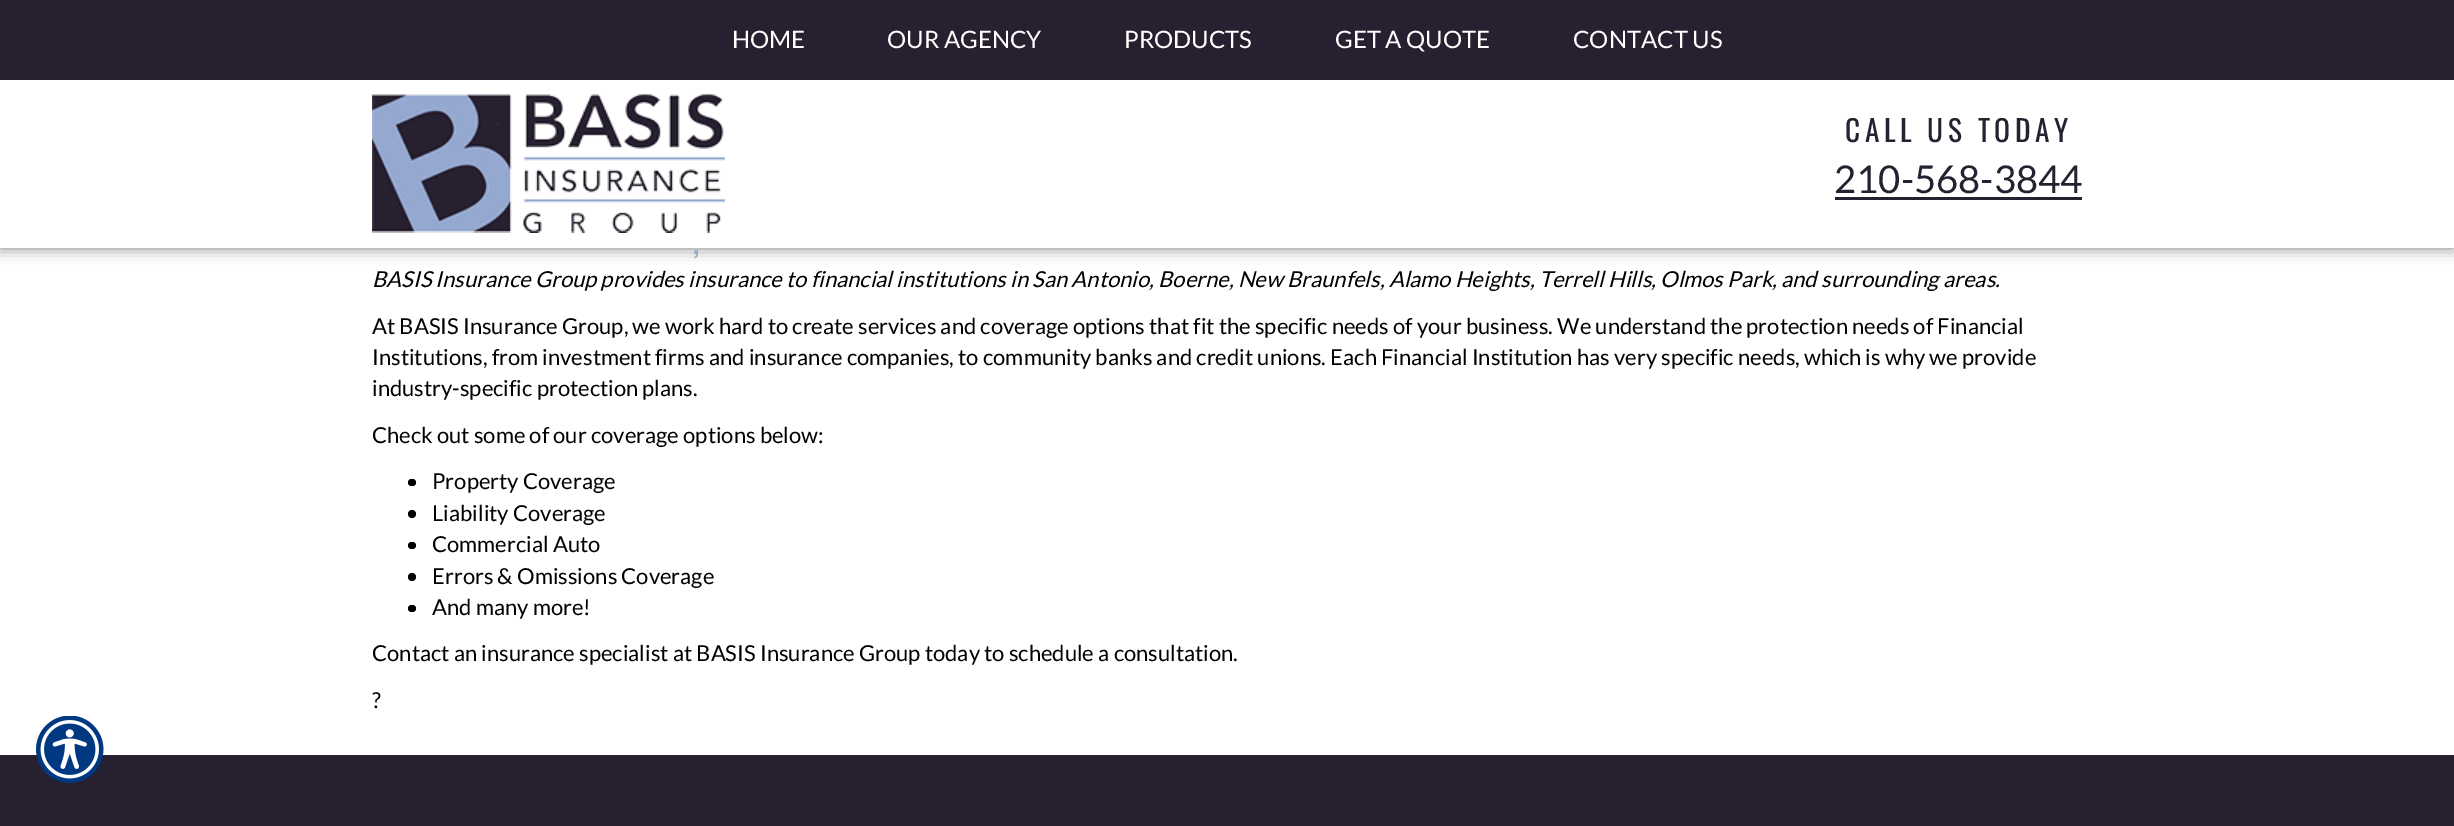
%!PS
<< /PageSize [2454 826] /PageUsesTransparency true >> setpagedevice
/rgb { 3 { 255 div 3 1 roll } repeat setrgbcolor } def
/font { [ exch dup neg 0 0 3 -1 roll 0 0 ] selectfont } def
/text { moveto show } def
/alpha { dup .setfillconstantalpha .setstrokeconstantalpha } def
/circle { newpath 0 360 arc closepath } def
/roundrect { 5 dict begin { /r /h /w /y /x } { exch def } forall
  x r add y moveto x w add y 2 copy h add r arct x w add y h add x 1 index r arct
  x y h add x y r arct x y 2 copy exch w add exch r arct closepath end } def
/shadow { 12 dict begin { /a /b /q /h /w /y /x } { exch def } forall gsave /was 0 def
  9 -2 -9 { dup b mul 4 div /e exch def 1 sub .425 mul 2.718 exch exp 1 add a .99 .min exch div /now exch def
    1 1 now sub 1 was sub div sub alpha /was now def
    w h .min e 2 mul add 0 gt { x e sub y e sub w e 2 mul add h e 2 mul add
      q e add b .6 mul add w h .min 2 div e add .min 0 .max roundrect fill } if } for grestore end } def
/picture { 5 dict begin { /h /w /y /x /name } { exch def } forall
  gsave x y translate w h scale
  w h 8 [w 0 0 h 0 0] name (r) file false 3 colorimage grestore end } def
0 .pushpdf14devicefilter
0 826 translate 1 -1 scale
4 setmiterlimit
255 255 255 rgb
0 0 2454 826 rectfill
0 0 0 rgb
0 0 2454 248 0 7.5 0.5 shadow
255 255 255 rgb
0 80 2454 168 rectfill
39 32 48 rgb
0 0 2454 80 rectfill
(img_01.rgb) 372 94 353 139 picture
1835 197 247 3 rectfill
0 0 0 rgb
408 479 8 7 3.5 roundrect fill
412 514 4 circle fill
408 542 8 7 3.5 roundrect fill
412 577 4 circle fill
408 605 8 7 3.5 roundrect fill
39 32 48 rgb
0 755 2454 71 rectfill
(img_02.rgb) 36 716 68 67 picture
/Lato-Regular 24 font
255 255 255 rgb
(HOME) 732 48 text
(OUR AGENCY) 887 48 text
(PRODUCTS) 1124 48 text
(GET A QUOTE) 1335 48 text
(CONTACT US) 1573 48 text
/Oswald-Regular 29.5 font
39 32 48 rgb
1845 142 moveto 4.5 0 (CALL US TODAY) ashow
/Lato-Regular 38.25 font
(210-568-3844) 1834 193 text
/Oswald-Regular 33 font
149 168 208 rgb
(,) 693 254 text
/Lato-Italic 22 font
0 0 0 rgb
(BASIS Insurance Group provides insurance to financial institutions in San Antonio, Boerne, New Braunfels, Alamo Heights, Terrell Hills, Olmos Park, and surrounding areas.) 372 287 text
/Lato-Regular 22 font
(At BASIS Insurance Group, we work hard to create services and coverage options that fit the specific needs of your business. We understand the protection needs of Financial) 372 334 text
(Institutions, from investment firms and insurance companies, to community banks and credit unions. Each Financial Institution has very specific needs, which is why we provide) 372 365 text
(industry-specific protection plans.) 372 396 text
(Check out some of our coverage options below:) 372 443 text
(Property Coverage) 432 489 text
(Liability Coverage) 432 521 text
(Commercial Auto) 432 552 text
(Errors & Omissions Coverage) 432 584 text
(And many more!) 432 615 text
(Contact an insurance specialist at BASIS Insurance Group today to schedule a consultation.) 372 661 text
(?) 372 708 text
.poppdf14devicefilter showpage
